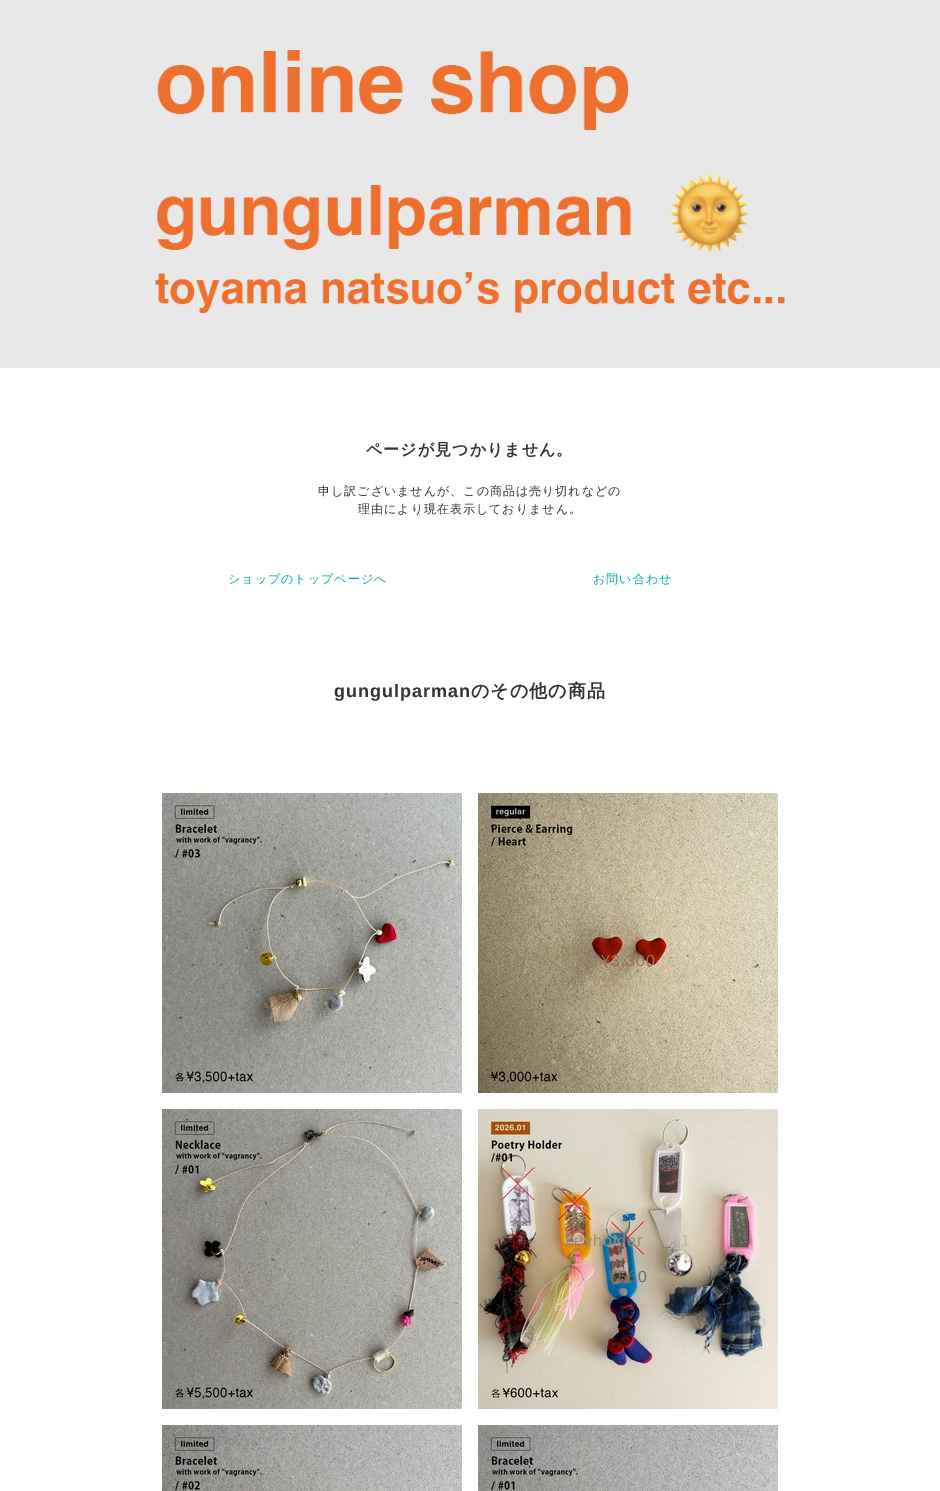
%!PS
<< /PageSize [940 1491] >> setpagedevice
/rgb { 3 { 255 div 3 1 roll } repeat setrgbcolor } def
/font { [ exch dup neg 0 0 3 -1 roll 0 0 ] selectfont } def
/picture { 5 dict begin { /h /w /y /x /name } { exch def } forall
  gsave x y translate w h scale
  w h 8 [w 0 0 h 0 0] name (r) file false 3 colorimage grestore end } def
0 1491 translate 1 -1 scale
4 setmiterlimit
232 232 232 rgb
0 0 940 1491 rectfill
(img_01.rgb) 155 50 630 263 picture
255 255 255 rgb
0 368 940 1123 rectfill
(img_02.rgb) 162 793 300 300 picture
(img_03.rgb) 478 793 300 300 picture
(img_04.rgb) 162 1109 300 300 picture
(img_05.rgb) 478 1109 300 300 picture
(img_06.rgb) 162 1425 300 66 picture
(img_07.rgb) 478 1425 300 66 picture
/WenQuanYiZenHei-Bold 16 font
51 51 51 rgb
366 455 moveto 1 0 (ページが見つかりません。) ashow
/WenQuanYiZenHei-Medium 12 font
318 495 moveto 1 0 (申し訳ございませんが、この商品は売り切れなどの) ashow
358 513 moveto 1 0 (理由により現在表示しておりません。) ashow
0 174 159 rgb
228 583 moveto 1 0 (ショップのトップページへ) ashow
593 583 moveto 1 0 (お問い合わせ) ashow
/LiberationSans-Bold 18 font
51 51 51 rgb
334 697 moveto 1 0 (gungulparman) ashow
/WenQuanYiZenHei-Bold 18 font
471 697 moveto 1 0 (のその他の商品) ashow
/LiberationSans-Regular 16 font
154 146 141 rgb
398 930 moveto 1 0 (3) ashow
156 110 86 rgb
601 966 moveto 1 0 (¥3,300) ashow
150 143 124 rgb
565 1246 moveto 1 0 (keyholder) ashow
196 185 171 rgb
681 1246 moveto 1 0 (1) ashow
99 115 121 rgb
608 1282 moveto 1 0 (¥660) ashow
showpage
